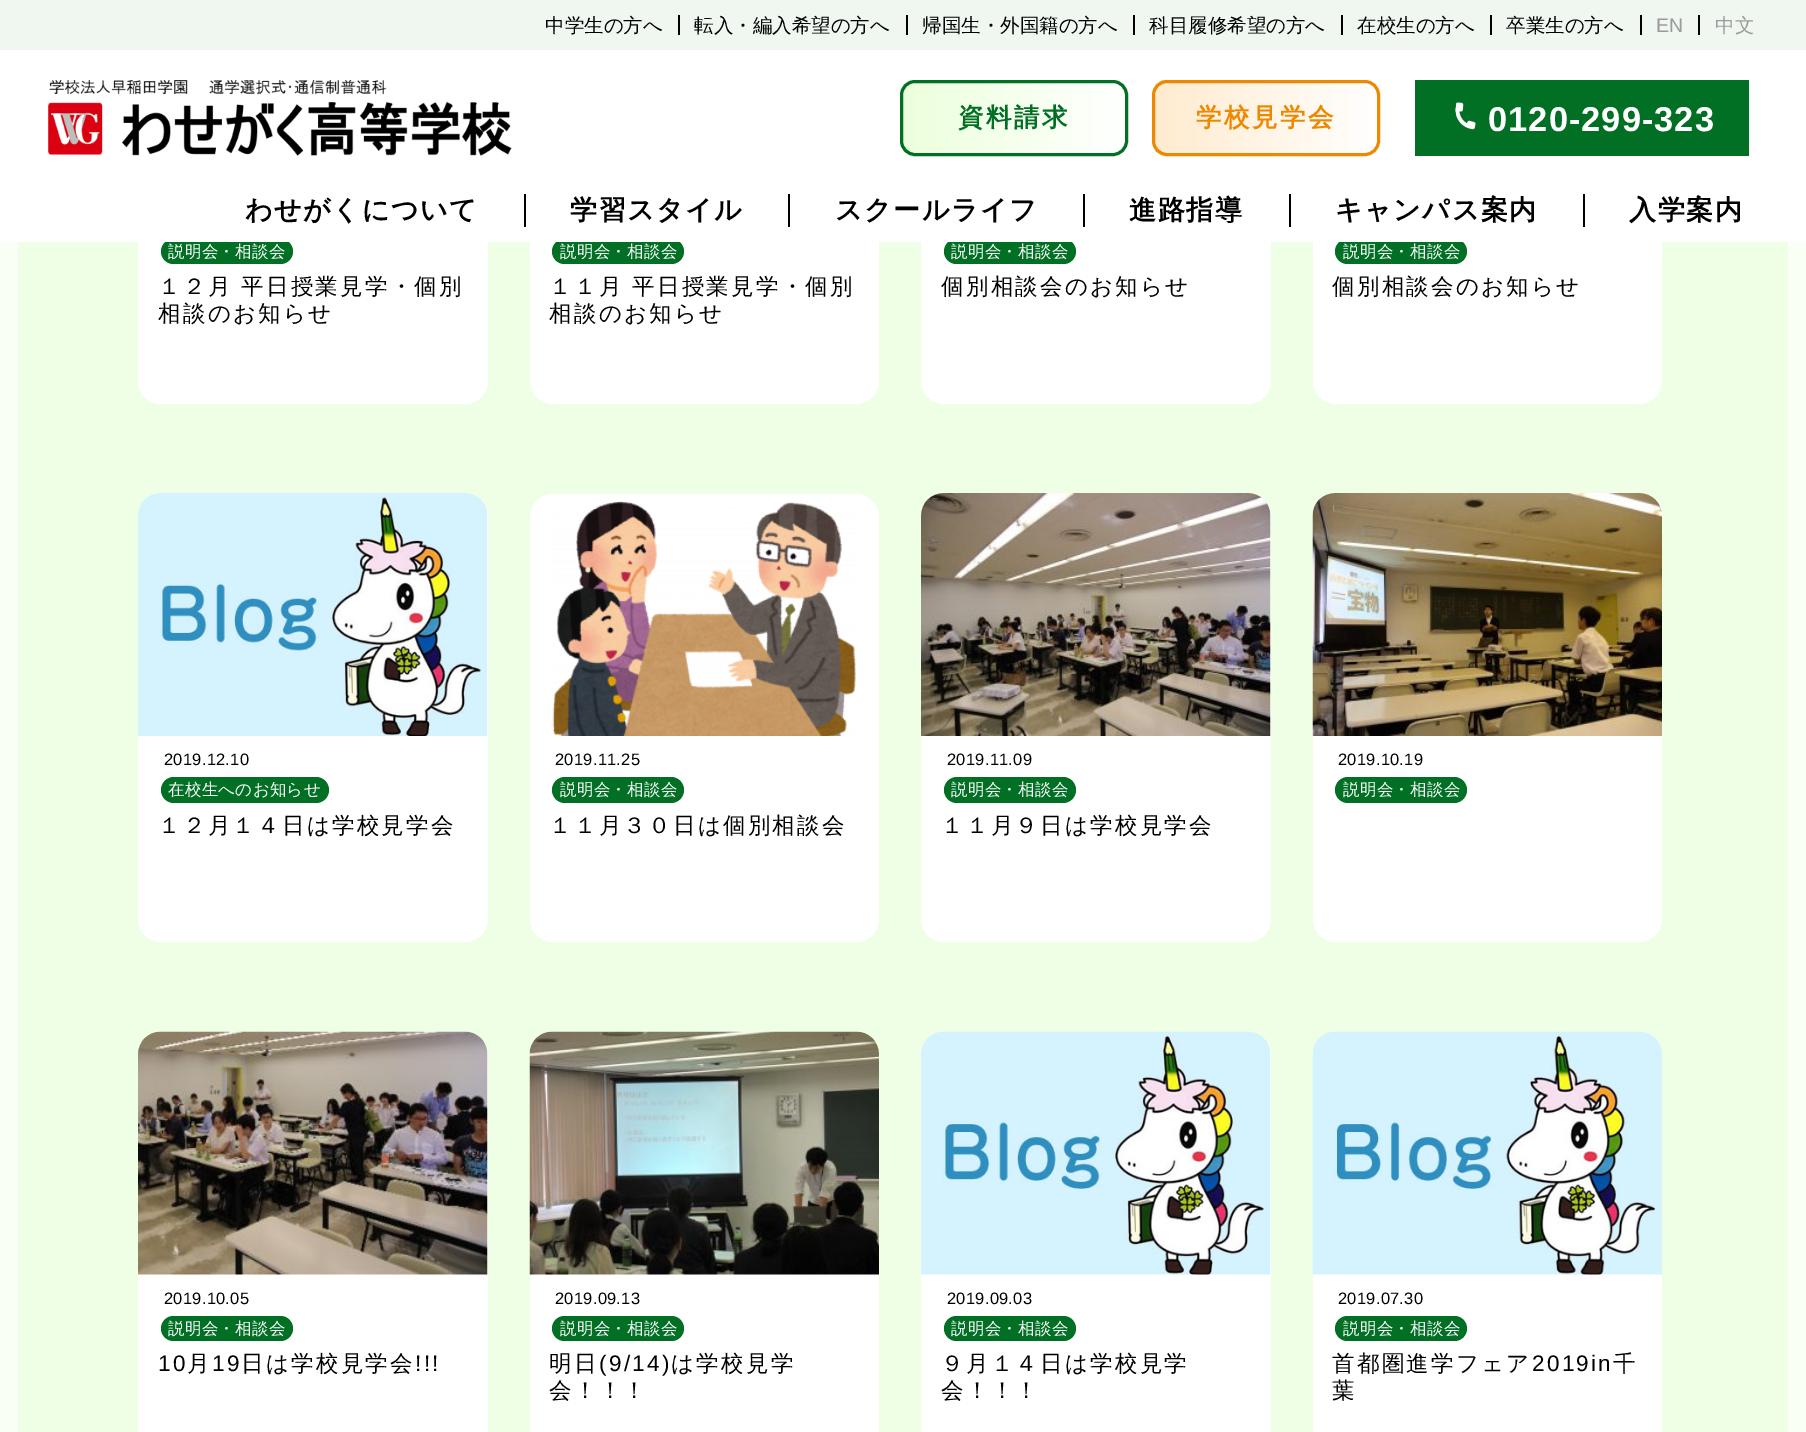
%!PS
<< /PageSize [1806 1432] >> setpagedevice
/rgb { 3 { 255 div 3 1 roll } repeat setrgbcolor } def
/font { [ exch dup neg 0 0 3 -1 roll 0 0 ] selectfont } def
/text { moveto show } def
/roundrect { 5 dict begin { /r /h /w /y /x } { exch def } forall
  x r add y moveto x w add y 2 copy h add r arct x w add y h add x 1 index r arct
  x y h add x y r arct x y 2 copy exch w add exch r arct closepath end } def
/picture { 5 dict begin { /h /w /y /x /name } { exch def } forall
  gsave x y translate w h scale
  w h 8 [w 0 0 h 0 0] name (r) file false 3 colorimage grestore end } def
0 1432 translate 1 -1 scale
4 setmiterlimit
250 255 246 rgb
0 0 1806 1432 rectfill
238 255 230 rgb
18 242 1770 1190 rectfill
255 255 255 rgb
138 -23 350 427 23 roundrect fill
1 112 36 rgb
161 239 132 25 12.5 roundrect fill
255 255 255 rgb
530 -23 349 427 23 roundrect fill
1 112 36 rgb
552 239 132 25 12.5 roundrect fill
255 255 255 rgb
921 -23 350 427 23 roundrect fill
1 112 36 rgb
944 239 132 25 12.5 roundrect fill
255 255 255 rgb
1313 -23 349 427 23 roundrect fill
1 112 36 rgb
1335 239 132 25 12.5 roundrect fill
255 255 255 rgb
0 50 1806 192 rectfill
239 247 240 rgb
0 0 1806 50 rectfill
0 0 0 rgb
678 15 2 20 rectfill
906 15 2 20 rectfill
1133 15 2 20 rectfill
1341 15 2 20 rectfill
1490 15 2 20 rectfill
1640 15 2 20 rectfill
1698 15 2 20 rectfill
(img_01.rgb) 48 80 464 76 picture
gsave
900 80 228 76 15 roundrect clip newpath
gsave 903 80 moveto 222 0 rlineto 0 76 rlineto -222 0 rlineto closepath clip newpath
<< /ShadingType 2 /ColorSpace /DeviceRGB /Coords [903 118 1125 118] /Extend [true true] /Function << /FunctionType 2 /Domain [0 1] /C0 [0.925 1 0.863] /C1 [1 1 1] /N 1 >> >> shfill grestore
grestore
1 112 36 rgb
3 setlinewidth
901.5 81.5 225 73 13.5 roundrect stroke
gsave
1152 80 228 76 15 roundrect clip newpath
gsave 1155 80 moveto 222 0 rlineto 0 76 rlineto -222 0 rlineto closepath clip newpath
<< /ShadingType 2 /ColorSpace /DeviceRGB /Coords [1155 118 1377 118] /Extend [true true] /Function << /FunctionType 2 /Domain [0 1] /C0 [1 0.922 0.812] /C1 [1 1 1] /N 1 >> >> shfill grestore
grestore
238 136 0 rgb
1153.5 81.5 225 73 13.5 roundrect stroke
1 112 36 rgb
1415 80 334 76 rectfill
(img_02.rgb) 1455 102 21 28 picture
0 0 0 rgb
524 194 2 33 rectfill
788 194 2 33 rectfill
1083 194 2 33 rectfill
1289 194 2 33 rectfill
1583 194 2 33 rectfill
255 255 255 rgb
138 494 350 448 23 roundrect fill
(img_03.rgb) 138 493 350 243 picture
1 112 36 rgb
161 777 168 26 13 roundrect fill
255 255 255 rgb
530 494 349 448 23 roundrect fill
(img_04.rgb) 552 501 304 235 picture
1 112 36 rgb
552 777 132 26 13 roundrect fill
255 255 255 rgb
921 494 350 448 23 roundrect fill
(img_05.rgb) 921 493 350 243 picture
1 112 36 rgb
944 777 132 26 13 roundrect fill
255 255 255 rgb
1313 494 349 448 23 roundrect fill
(img_06.rgb) 1312 493 350 243 picture
1 112 36 rgb
1335 777 132 26 13 roundrect fill
255 255 255 rgb
138 1032 350 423 23 roundrect fill
(img_07.rgb) 138 1031 350 244 picture
1 112 36 rgb
161 1316 132 25 12.5 roundrect fill
255 255 255 rgb
530 1032 349 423 23 roundrect fill
(img_08.rgb) 529 1031 350 244 picture
1 112 36 rgb
552 1316 132 25 12.5 roundrect fill
255 255 255 rgb
921 1032 350 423 23 roundrect fill
(img_09.rgb) 921 1031 350 244 picture
1 112 36 rgb
944 1316 132 25 12.5 roundrect fill
255 255 255 rgb
1313 1032 349 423 23 roundrect fill
(img_10.rgb) 1312 1031 350 244 picture
1 112 36 rgb
1335 1316 132 25 12.5 roundrect fill
/WenQuanYiZenHei-Medium 19.5 font
0 0 0 rgb
(中学生の方へ) 545 32 text
(転入・編入希望の方へ) 694 32 text
(帰国生・外国籍の方へ) 922 32 text
(科目履修希望の方へ) 1149 32 text
(在校生の方へ) 1357 32 text
(卒業生の方へ) 1506 32 text
/LiberationSans-Regular 19.5 font
155 155 155 rgb
(EN) 1656 32 text
/WenQuanYiZenHei-Medium 19.5 font
(中文) 1715 32 text
/WenQuanYiZenHei-Bold 25.5 font
1 112 36 rgb
958 126 moveto 2.5 0 (資料請求) ashow
238 136 0 rgb
1196 126 moveto 2.5 0 (学校見学会) ashow
/LiberationSans-Bold 34.5 font
255 255 255 rgb
1488 131 moveto 1 0 (0120-299-323) ashow
/WenQuanYiZenHei-Bold 27 font
0 0 0 rgb
245 219 moveto 1.5 0 (わせがくについて) ashow
570 219 moveto 1.5 0 (学習スタイル) ashow
835 219 moveto 1.5 0 (スクールライフ) ashow
1129 219 moveto 1.5 0 (進路指導) ashow
1335 219 moveto 1.5 0 (キャンパス案内) ashow
1629 219 moveto 1.5 0 (入学案内) ashow
/WenQuanYiZenHei-Medium 16.5 font
255 255 255 rgb
168 257 moveto 0.25 0 (説明会・相談会) ashow
/WenQuanYiZenHei-Medium 22.5 font
0 0 0 rgb
158 294 moveto 2.25 0 (１２月 平日授業見学・個別) ashow
158 321 moveto 2.25 0 (相談のお知らせ) ashow
/WenQuanYiZenHei-Medium 16.5 font
255 255 255 rgb
560 257 moveto 0.25 0 (説明会・相談会) ashow
/WenQuanYiZenHei-Medium 22.5 font
0 0 0 rgb
549 294 moveto 2.25 0 (１１月 平日授業見学・個別) ashow
549 321 moveto 2.25 0 (相談のお知らせ) ashow
/WenQuanYiZenHei-Medium 16.5 font
255 255 255 rgb
951 257 moveto 0.25 0 (説明会・相談会) ashow
/WenQuanYiZenHei-Medium 22.5 font
0 0 0 rgb
941 294 moveto 2.25 0 (個別相談会のお知らせ) ashow
/WenQuanYiZenHei-Medium 16.5 font
255 255 255 rgb
1343 257 moveto 0.25 0 (説明会・相談会) ashow
/WenQuanYiZenHei-Medium 22.5 font
0 0 0 rgb
1332 294 moveto 2.25 0 (個別相談会のお知らせ) ashow
/LiberationSans-Regular 16.5 font
164 765 moveto 0.25 0 (2019.12.10) ashow
/WenQuanYiZenHei-Medium 16.5 font
255 255 255 rgb
168 795 moveto 0.25 0 (在校生へのお知らせ) ashow
/WenQuanYiZenHei-Medium 22.5 font
0 0 0 rgb
158 833 moveto 2.25 0 (１２月１４日は学校見学会) ashow
/LiberationSans-Regular 16.5 font
555 765 moveto 0.25 0 (2019.11.25) ashow
/WenQuanYiZenHei-Medium 16.5 font
255 255 255 rgb
560 795 moveto 0.25 0 (説明会・相談会) ashow
/WenQuanYiZenHei-Medium 22.5 font
0 0 0 rgb
549 833 moveto 2.25 0 (１１月３０日は個別相談会) ashow
/LiberationSans-Regular 16.5 font
947 765 moveto 0.25 0 (2019.11.09) ashow
/WenQuanYiZenHei-Medium 16.5 font
255 255 255 rgb
951 795 moveto 0.25 0 (説明会・相談会) ashow
/WenQuanYiZenHei-Medium 22.5 font
0 0 0 rgb
941 833 moveto 2.25 0 (１１月９日は学校見学会) ashow
/LiberationSans-Regular 16.5 font
1338 765 moveto 0.25 0 (2019.10.19) ashow
/WenQuanYiZenHei-Medium 16.5 font
255 255 255 rgb
1343 795 moveto 0.25 0 (説明会・相談会) ashow
/LiberationSans-Regular 16.5 font
0 0 0 rgb
164 1304 moveto 0.25 0 (2019.10.05) ashow
/WenQuanYiZenHei-Medium 16.5 font
255 255 255 rgb
168 1334 moveto 0.25 0 (説明会・相談会) ashow
/LiberationSans-Regular 22.5 font
0 0 0 rgb
158 1371 moveto 2.25 0 (10) ashow
/WenQuanYiZenHei-Medium 22.5 font
187 1371 moveto 2.25 0 (月) ashow
/LiberationSans-Regular 22.5 font
212 1371 moveto 2.25 0 (19) ashow
/WenQuanYiZenHei-Medium 22.5 font
241 1371 moveto 2.25 0 (日は学校見学会) ashow
/LiberationSans-Regular 22.5 font
415 1371 moveto 2.25 0 (!!!) ashow
/LiberationSans-Regular 16.5 font
555 1304 moveto 0.25 0 (2019.09.13) ashow
/WenQuanYiZenHei-Medium 16.5 font
255 255 255 rgb
560 1334 moveto 0.25 0 (説明会・相談会) ashow
/WenQuanYiZenHei-Medium 22.5 font
0 0 0 rgb
549 1371 moveto 2.25 0 (明日) ashow
/LiberationSans-Regular 22.5 font
599 1371 moveto 2.25 0 (\(9/14\)) ashow
/WenQuanYiZenHei-Medium 22.5 font
671 1371 moveto 2.25 0 (は学校見学) ashow
549 1398 moveto 2.25 0 (会！！！) ashow
/LiberationSans-Regular 16.5 font
947 1304 moveto 0.25 0 (2019.09.03) ashow
/WenQuanYiZenHei-Medium 16.5 font
255 255 255 rgb
951 1334 moveto 0.25 0 (説明会・相談会) ashow
/WenQuanYiZenHei-Medium 22.5 font
0 0 0 rgb
941 1371 moveto 2.25 0 (９月１４日は学校見学) ashow
941 1398 moveto 2.25 0 (会！！！) ashow
/LiberationSans-Regular 16.5 font
1338 1304 moveto 0.25 0 (2019.07.30) ashow
/WenQuanYiZenHei-Medium 16.5 font
255 255 255 rgb
1343 1334 moveto 0.25 0 (説明会・相談会) ashow
/WenQuanYiZenHei-Medium 22.5 font
0 0 0 rgb
1332 1371 moveto 2.25 0 (首都圏進学フェア) ashow
/LiberationSans-Regular 22.5 font
1532 1371 moveto 2.25 0 (2019in) ashow
/WenQuanYiZenHei-Medium 22.5 font
1613 1371 moveto 2.25 0 (千) ashow
1332 1398 moveto 2.25 0 (葉) ashow
showpage
